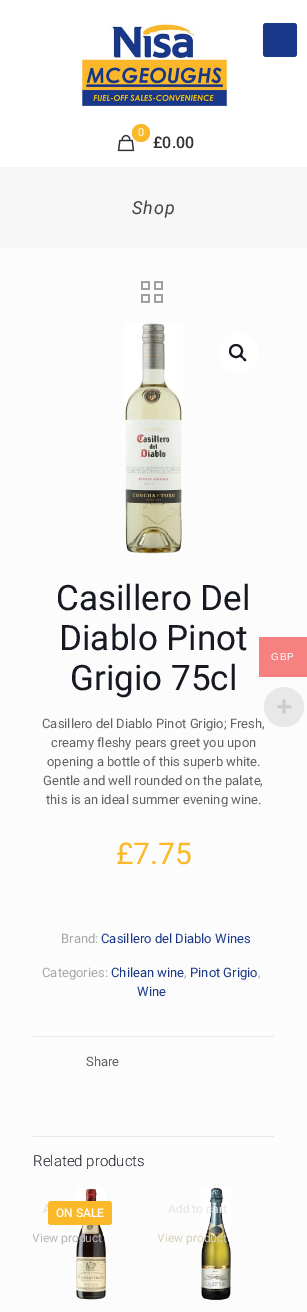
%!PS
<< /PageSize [307 1312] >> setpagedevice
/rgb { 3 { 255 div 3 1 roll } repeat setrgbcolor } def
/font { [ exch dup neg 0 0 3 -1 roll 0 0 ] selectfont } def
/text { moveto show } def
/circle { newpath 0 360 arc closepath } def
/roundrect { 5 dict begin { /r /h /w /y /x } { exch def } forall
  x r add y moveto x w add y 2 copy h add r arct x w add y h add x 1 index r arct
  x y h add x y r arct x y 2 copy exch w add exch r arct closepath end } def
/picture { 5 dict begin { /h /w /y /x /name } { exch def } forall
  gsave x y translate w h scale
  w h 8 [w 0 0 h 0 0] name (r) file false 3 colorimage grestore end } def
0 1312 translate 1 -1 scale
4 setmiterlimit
252 252 252 rgb
0 0 307 1312 rectfill
255 255 255 rgb
0 0 307 167 rectfill
(img_01.rgb) 79 23 151 84 picture
25 56 138 rgb
263 23 34 34 3 roundrect fill
(img_02.rgb) 117 134 18 18 picture
251 184 41 rgb
141 133 9 circle fill
247 247 247 rgb
0 167 307 81 rectfill
(img_03.rgb) 141 281 22 22 picture
(img_04.rgb) 125 323 58 232 picture
255 255 255 rgb
239 353 20 circle fill
22 25 34 rgb
2 setlinewidth
236 351 6 circle stroke
240 355 moveto 1.5 -1 3 1.5 3.5 2.5 rcurveto 1 0.5 3.5 2 2.5 3.5 rcurveto -1.5 1 -3 -1.5 -3.5 -2.5 rcurveto -1 -0.5 -3.5 -2 -2.5 -3.5 rcurveto closepath fill
232 232 232 rgb
33 1036 241 1 rectfill
33 1136 241 1 rectfill
(img_05.rgb) 76 1188 30 112 picture
(img_06.rgb) 201 1188 30 113 picture
247 128 128 rgb
259 637 48 40 rectfill
/Roboto-Regular 11 font
255 255 255 rgb
(0) 138 136 text
/Roboto-Medium 16 font
51 51 51 rgb
(£0.00) 153 148 text
/Roboto-Italic 18 font
68 68 68 rgb
132 214 moveto 1 0 (Shop) ashow
/Roboto-Regular 35 font
22 25 34 rgb
(Casillero Del) 56 610 text
(Diablo Pinot) 59 650 text
(Grigio 75cl) 70 690 text
/Roboto-Regular 13 font
98 98 98 rgb
(Casillero del Diablo Pinot Grigio; Fresh,) 42 728 text
(creamy fleshy pears greet you upon) 51 747 text
(opening a bottle of this superb white.) 47 766 text
(Gentle and well rounded on the palate,) 43 785 text
(this is an ideal summer evening wine.) 46 804 text
/Roboto-Regular 30 font
251 184 41 rgb
(£7.75) 116 864 text
/Roboto-Regular 13 font
168 168 168 rgb
(Brand:) 61 943 text
25 56 138 rgb
(Casillero del Diablo Wines) 101 943 text
168 168 168 rgb
(Categories:) 42 977 text
25 56 138 rgb
(Chilean wine) 111 977 text
168 168 168 rgb
(,) 184 977 text
25 56 138 rgb
(Pinot Grigio) 190 977 text
168 168 168 rgb
(,) 258 977 text
25 56 138 rgb
(Wine) 137 996 text
98 98 98 rgb
(Share) 86 1066 text
/Roboto-Light 15 font
22 25 34 rgb
(Related products) 33 1166 text
/Roboto-Regular 12 font
229 214 213 rgb
(A) 43 1213 text
gsave
33 1186 116 116 rectclip
186 183 183 rgb
(View product) 32 1242 text
grestore
251 184 41 rgb
48 1201 64 24 3 roundrect fill
/Roboto-Medium 12 font
255 255 255 rgb
(ON SALE) 56 1217 text
/Roboto-Regular 12 font
226 230 231 rgb
(Add to cart) 168 1213 text
gsave
158 1186 116 116 rectclip
215 210 185 rgb
(View product) 157 1242 text
grestore
/LiberationSans-Regular 10 font
255 255 255 rgb
271 660 moveto 1 0 (GBP) ashow
232 232 232 rgb
284 707 20 circle fill
/LiberationSans-Bold 28 font
204 204 204 rgb
(+) 276 716 text
showpage
